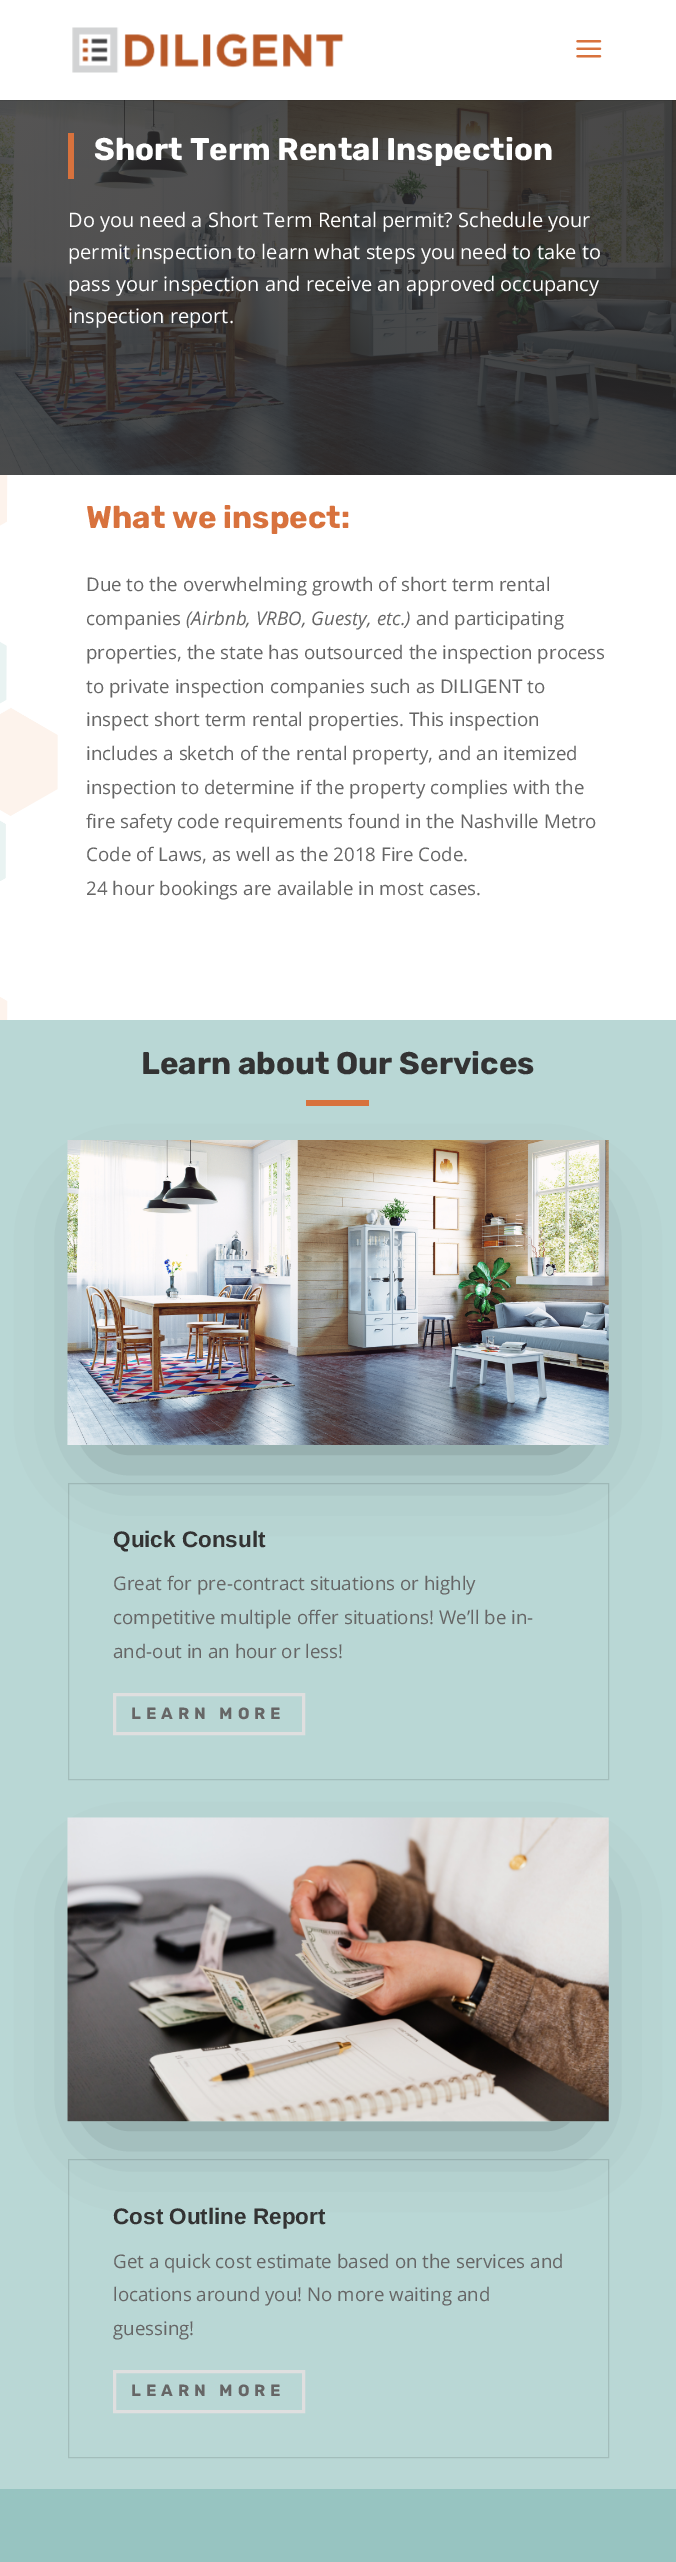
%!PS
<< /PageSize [676 2562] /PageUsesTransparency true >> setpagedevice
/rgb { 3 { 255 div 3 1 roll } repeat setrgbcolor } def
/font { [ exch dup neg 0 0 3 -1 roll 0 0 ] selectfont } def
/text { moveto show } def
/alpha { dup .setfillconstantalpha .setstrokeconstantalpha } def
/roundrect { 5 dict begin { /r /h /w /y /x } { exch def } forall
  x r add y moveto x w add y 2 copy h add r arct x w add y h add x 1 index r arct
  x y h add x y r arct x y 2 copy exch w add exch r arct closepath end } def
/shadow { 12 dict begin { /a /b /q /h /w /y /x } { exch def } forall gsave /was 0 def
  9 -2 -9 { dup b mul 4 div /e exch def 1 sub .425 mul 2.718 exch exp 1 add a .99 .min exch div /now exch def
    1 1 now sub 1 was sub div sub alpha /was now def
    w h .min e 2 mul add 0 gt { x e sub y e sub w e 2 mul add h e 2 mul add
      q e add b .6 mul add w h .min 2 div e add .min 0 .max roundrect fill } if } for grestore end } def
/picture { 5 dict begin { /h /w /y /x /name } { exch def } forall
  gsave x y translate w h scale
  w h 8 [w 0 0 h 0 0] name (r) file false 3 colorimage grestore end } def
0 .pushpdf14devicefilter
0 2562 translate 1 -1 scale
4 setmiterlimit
255 255 255 rgb
0 0 676 2562 rectfill
(img_03.rgb) 0 100 676 375 picture
0.1 alpha
0 0 0 rgb
0 100 676 1 rectfill
1 alpha
(img_01.rgb) 72 27 272 46 picture
(img_02.rgb) 576 40 26 18 picture
216 114 61 rgb
68 133 6 46 rectfill
(img_04.rgb) 0 475 58 545 picture
185 215 213 rgb
0 1020 676 1469 rectfill
216 114 61 rgb
306 1100 63 6 rectfill
0 0 0 rgb
105 1215 466 230 0 40.5 0.35 shadow
(img_05.rgb) 67 1140 542 305 picture
0.12 alpha
68.5 1483.5 540 296 rectstroke
1 alpha
223 223 223 rgb
3 setlinewidth
114.5 1694.5 189 39 rectstroke
0 0 0 rgb
105 1893 466 228 0 40.5 0.35 shadow
(img_06.rgb) 67 1817 542 305 picture
0.12 alpha
1 setlinewidth
68.5 2159.5 540 298 rectstroke
1 alpha
223 223 223 rgb
3 setlinewidth
114.5 2371.5 189 40 rectstroke
151 196 193 rgb
0 2489 676 73 rectfill
/Rubik-Bold 31.25 font
255 255 255 rgb
(Short Term Rental Inspection) 94 160 text
/OpenSans-Regular 20 font
(Do you need a Short Term Rental permit? Schedule your) 68 227 text
(permit inspection to learn what steps you need to take to) 68 259 text
(pass your inspection and receive an approved occupancy) 68 291 text
(inspection report.) 68 323 text
/Rubik-Bold 31.25 font
216 114 61 rgb
(What we inspect:) 86 528 text
/OpenSans-Regular 18.75 font
102 102 102 rgb
(Due to the overwhelming growth of short term rental) 86 591 text
(companies) 86 625 text
/OpenSans-Italic 18.75 font
(\(Airbnb, VRBO, Guesty, etc.\)) 186 625 text
/OpenSans-Regular 18.75 font
(and participating) 416 625 text
(properties, the state has outsourced the inspection process) 86 659 text
(to private inspection companies such as DILIGENT to) 86 693 text
(inspect short term rental properties. This inspection) 86 726 text
(includes a sketch of the rental property, and an itemized) 86 760 text
(inspection to determine if the property complies with the) 86 794 text
(fire safety code requirements found in the Nashville Metro) 86 828 text
(Code of Laws, as well as the 2018 Fire Code.) 86 861 text
(24 hour bookings are available in most cases.) 86 895 text
/Rubik-Bold 31.25 font
51 51 51 rgb
(Learn about Our Services) 141 1074 text
/Arimo-Bold 22.5 font
(Quick Consult) 113 1547 text
/OpenSans-Regular 18.75 font
102 102 102 rgb
(Great for pre-contract situations or highly) 113 1590 text
(competitive multiple offer situations! We’ll be in-) 113 1624 text
(and-out in an hour or less!) 113 1658 text
/Rubik-Bold 16.25 font
131 1719 moveto 5 0 (LEARN MORE) ashow
/Arimo-Bold 22.5 font
51 51 51 rgb
(Cost Outline Report) 113 2224 text
/OpenSans-Regular 18.75 font
102 102 102 rgb
(Get a quick cost estimate based on the services and) 113 2268 text
(locations around you! No more waiting and) 113 2301 text
(guessing!) 113 2335 text
/Rubik-Bold 16.25 font
131 2396 moveto 5 0 (LEARN MORE) ashow
.poppdf14devicefilter showpage
